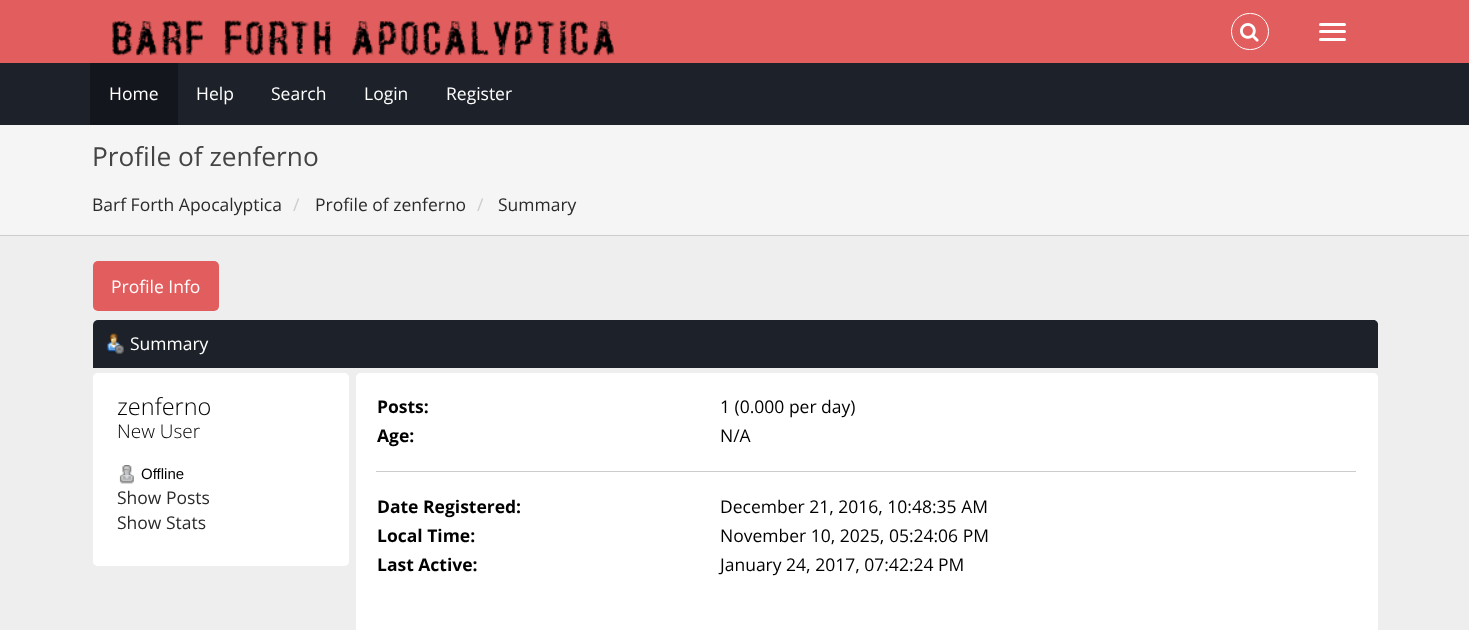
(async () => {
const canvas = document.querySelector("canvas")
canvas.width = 1469
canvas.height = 630
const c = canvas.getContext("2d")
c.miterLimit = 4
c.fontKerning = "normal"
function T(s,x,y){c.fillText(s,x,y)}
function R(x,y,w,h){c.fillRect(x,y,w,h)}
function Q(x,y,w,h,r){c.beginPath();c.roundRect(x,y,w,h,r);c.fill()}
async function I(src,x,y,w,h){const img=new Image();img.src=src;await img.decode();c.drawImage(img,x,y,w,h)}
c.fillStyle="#eee"
R(0,0,1469,630)
c.fillStyle="#e25d5d"
R(0,0,1469,63)
await I("1.png",112,20,503,36)
c.beginPath()
c.roundRect(1231.5,13.5,37,36,18)
c.strokeStyle="#fff"
c.stroke()
await I("2.png",1240,23,19,19)
c.fillStyle="#fff"
Q(1319,23,27,3,1.5)
Q(1319,30,27,3,1.5)
Q(1319,38,27,3,1.5)
c.fillStyle="#1d212a"
R(0,63,1469,62)
c.fillStyle="#13161c"
R(90,63,88,62)
c.font="17.5px Open Sans"
c.fillStyle="#fff"
T("Home",109,100)
T("Help",196,100)
T("Search",271,100)
T("Login",364,100)
T("Register",446,100)
c.fillStyle="#f5f5f5"
R(0,125,1469,110)
c.fillStyle="#ccc"
R(0,235,1469,1)
c.font="26.25px Open Sans"
c.fillStyle="#444"
T("Profile of zenferno",92,166)
c.font="17.5px Open Sans"
c.fillStyle="#2a2a2a"
T("Barf Forth Apocalyptica",92,211)
c.fillStyle="#ccc"
T("/",293,211)
c.fillStyle="#2a2a2a"
T("Profile of zenferno",315,211)
c.fillStyle="#ccc"
T("/",477,211)
c.fillStyle="#2a2a2a"
T("Summary",498,211)
c.fillStyle="#e25d5d"
Q(93,261,126,50,5)
c.fillStyle="#fff"
T("Profile Info",111,293)
c.fillStyle="#1d212a"
c.beginPath()
c.roundRect(93,320,1285,48,[5,5,0,0])
c.fill()
c.beginPath()
c.roundRect(104,320,1274,48,[0,5,0,0])
c.fill()
await I("3.png",107,333,17,21)
c.fillStyle="#fff"
T("Summary",130,350)
Q(93,373,256,193,5)
c.beginPath()
c.roundRect(93,373,256,13,[5,5,0,0])
c.fill()
c.font="300 23.5px Open Sans"
c.fillStyle="#000"
T("zenferno",117,415)
c.font="300 19px Open Sans"
T("New User",117,438)
await I("4.png",119,465,15,19)
c.font="15px Liberation Sans"
T("Offline",141,479)
c.font="17.5px Open Sans"
c.fillStyle="#2a2a2a"
T("Show Posts",117,504)
T("Show Stats",117,529)
c.fillStyle="#fff"
c.beginPath()
c.roundRect(93,553,256,13,[0,0,5,5])
c.fill()
Q(356,373,1022,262,5)
c.beginPath()
c.roundRect(356,373,1022,13,[5,5,0,0])
c.fill()
c.fillStyle="#ccc"
R(376,471,980,1)
c.font="bold 17.5px Open Sans"
c.fillStyle="#000"
T("Posts:",377,413)
c.font="17.5px Open Sans"
T("1 (0.000 per day)",720,413)
c.font="bold 17.5px Open Sans"
T("Age:",377,442)
c.font="17.5px Open Sans"
T("N/A",720,442)
c.font="bold 17.5px Open Sans"
T("Date Registered:",377,513)
c.font="17.5px Open Sans"
T("December 21, 2016, 10:48:35 AM",720,513)
c.font="bold 17.5px Open Sans"
T("Local Time:",377,542)
c.font="17.5px Open Sans"
T("November 10, 2025, 05:24:06 PM",720,542)
c.font="bold 17.5px Open Sans"
T("Last Active:",377,571)
c.font="17.5px Open Sans"
T("January 24, 2017, 07:42:24 PM",720,571)
})()
